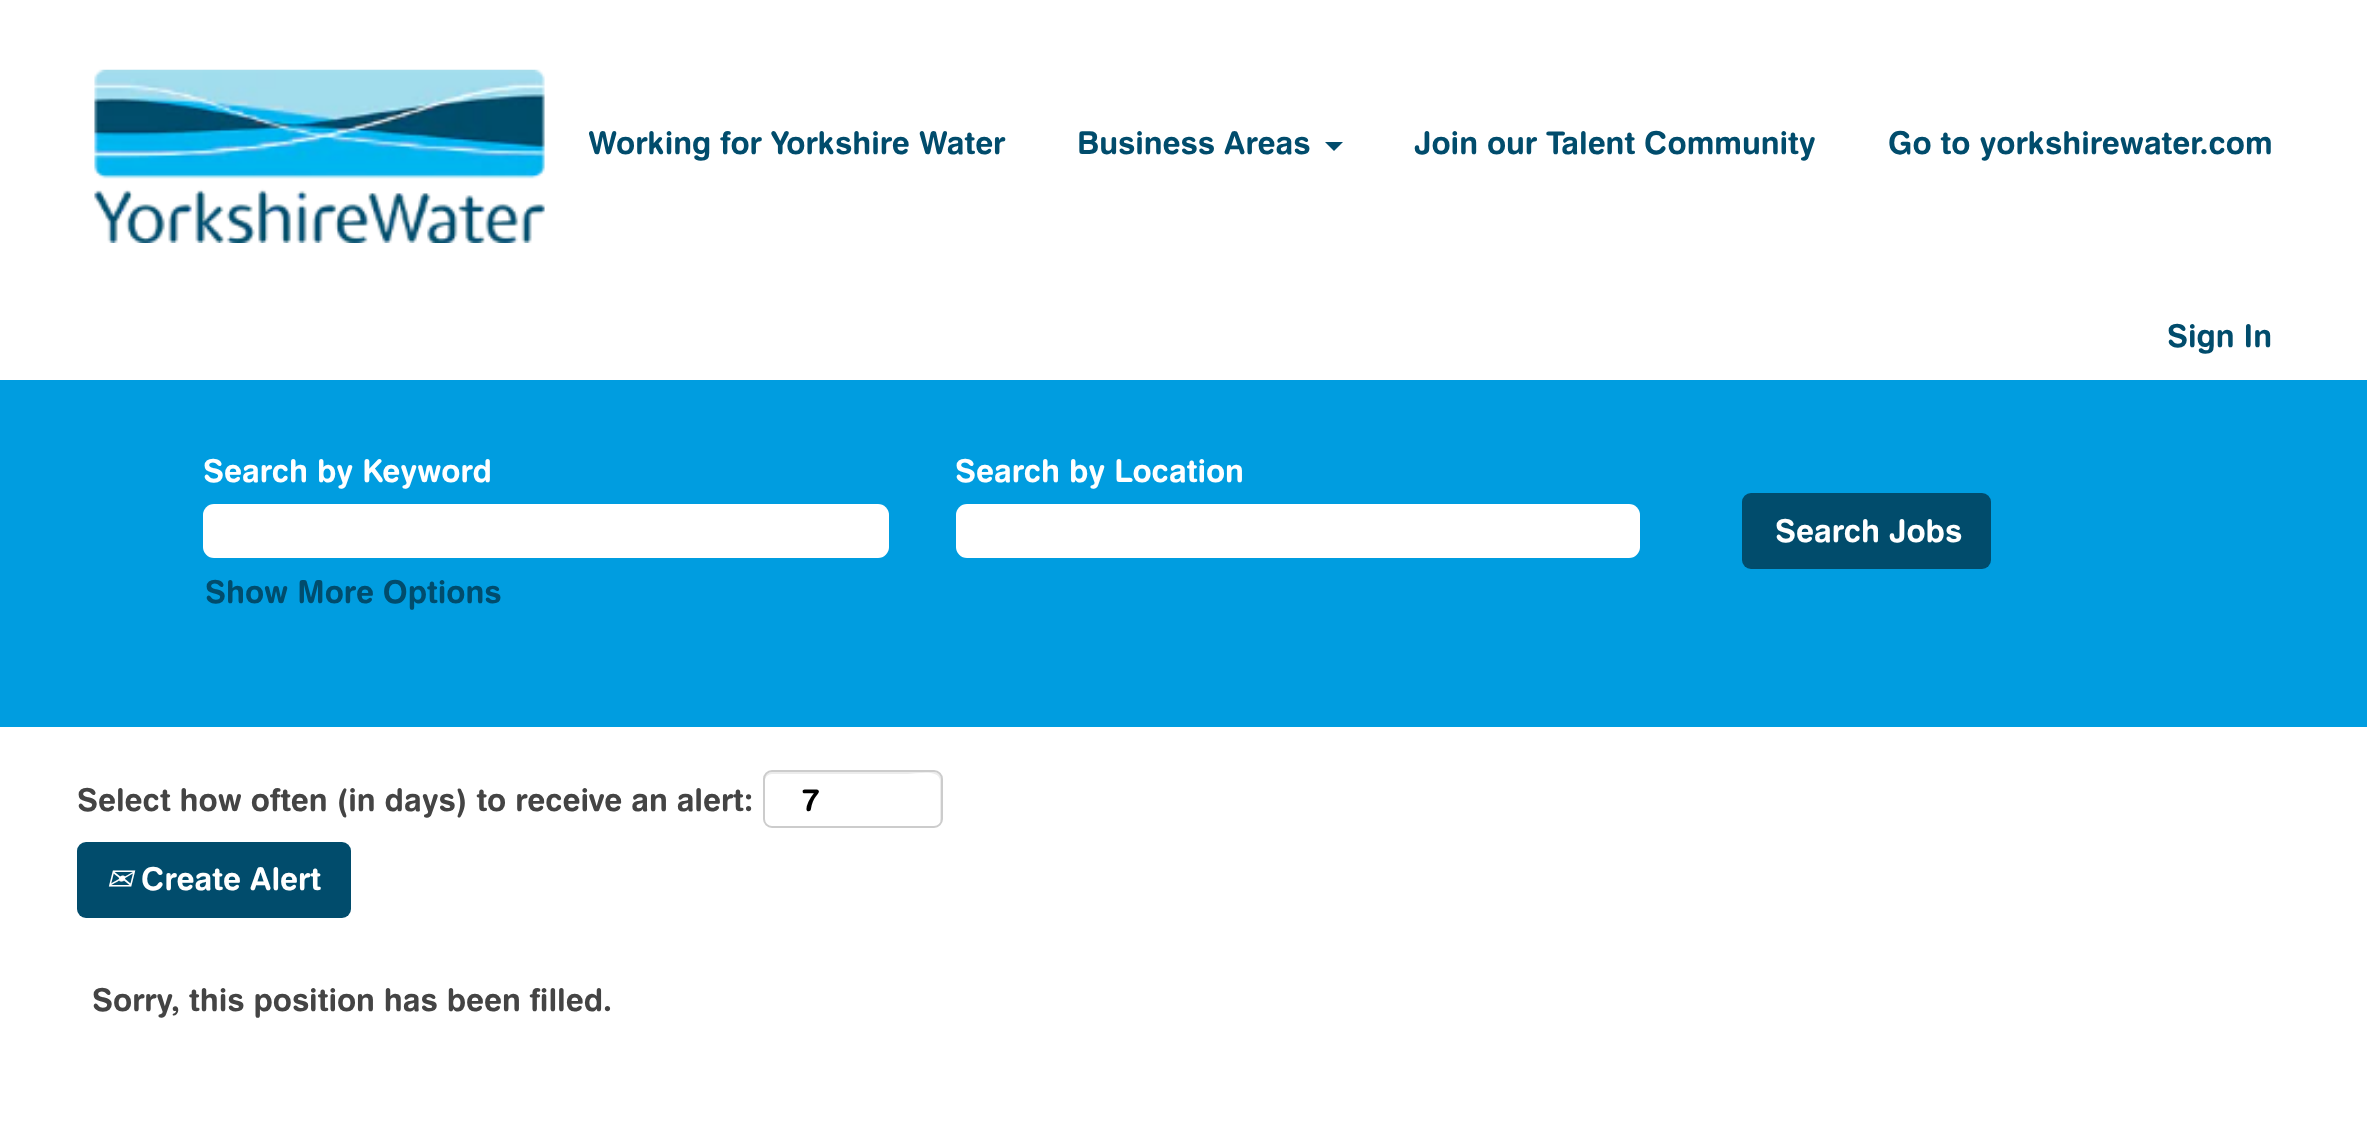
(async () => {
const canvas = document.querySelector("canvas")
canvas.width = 2367
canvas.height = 1126
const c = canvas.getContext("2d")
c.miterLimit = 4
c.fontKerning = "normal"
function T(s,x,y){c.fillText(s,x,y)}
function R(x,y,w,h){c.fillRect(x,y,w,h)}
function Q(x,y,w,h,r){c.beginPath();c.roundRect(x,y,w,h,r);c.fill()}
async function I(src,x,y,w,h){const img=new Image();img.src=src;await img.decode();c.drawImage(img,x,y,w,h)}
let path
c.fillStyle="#fff"
R(0,0,2367,1126)
await I("1.png",94,69,451,174)
c.font="bold 31.5px 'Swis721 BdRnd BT'"
c.fillStyle="#014c6c"
T("Working for Yorkshire Water",588,154)
T("Business Areas",1077,154)
path = new Path2D("M1325 142h18l-9 9z")
c.fill(path)
T("Join our Talent Community",1414,154)
T("Go to yorkshirewater.com",1888,154)
T("Sign In",2167,347)
c.fillStyle="#009de0"
R(0,380,2367,347)
c.fillStyle="#fff"
T("Search by Keyword",203,482)
Q(203,504,686,54,11)
T("Search by Location",955,482)
Q(956,504,684,54,11)
c.fillStyle="#014c6c"
T("Show More Options",205,603)
Q(1742,493,249,76,9)
c.fillStyle="#fff"
T("Search Jobs",1775,542)
c.fillStyle="#444"
T("Select how often (in days) to receive an alert:",77,811)
c.fillStyle="#ececec"
path = new Path2D("M772 774h135c10 0 31-5 33 6v43c1-1 1-3 1-4v-40c0-4-3-7-7-7h-162c-4 0-7 3-7 7v2c0-4 3-7 7-7z")
c.fill(path)
c.beginPath()
c.roundRect(764,771,178,56,8)
c.strokeStyle="#ccc"
c.lineWidth=2
c.stroke()
c.fillStyle="#000"
T("7",802,811)
c.fillStyle="#014c6c"
Q(77,842,274,76,9)
c.font="italic 31.5px DejaVu Sans"
c.fillStyle="#fff"
T("✉",106,890)
c.font="bold 31.5px 'Swis721 BdRnd BT'"
T("Create Alert",141,890)
c.fillStyle="#444"
T("Sorry, this position has been filled.",92,1011)
})()
